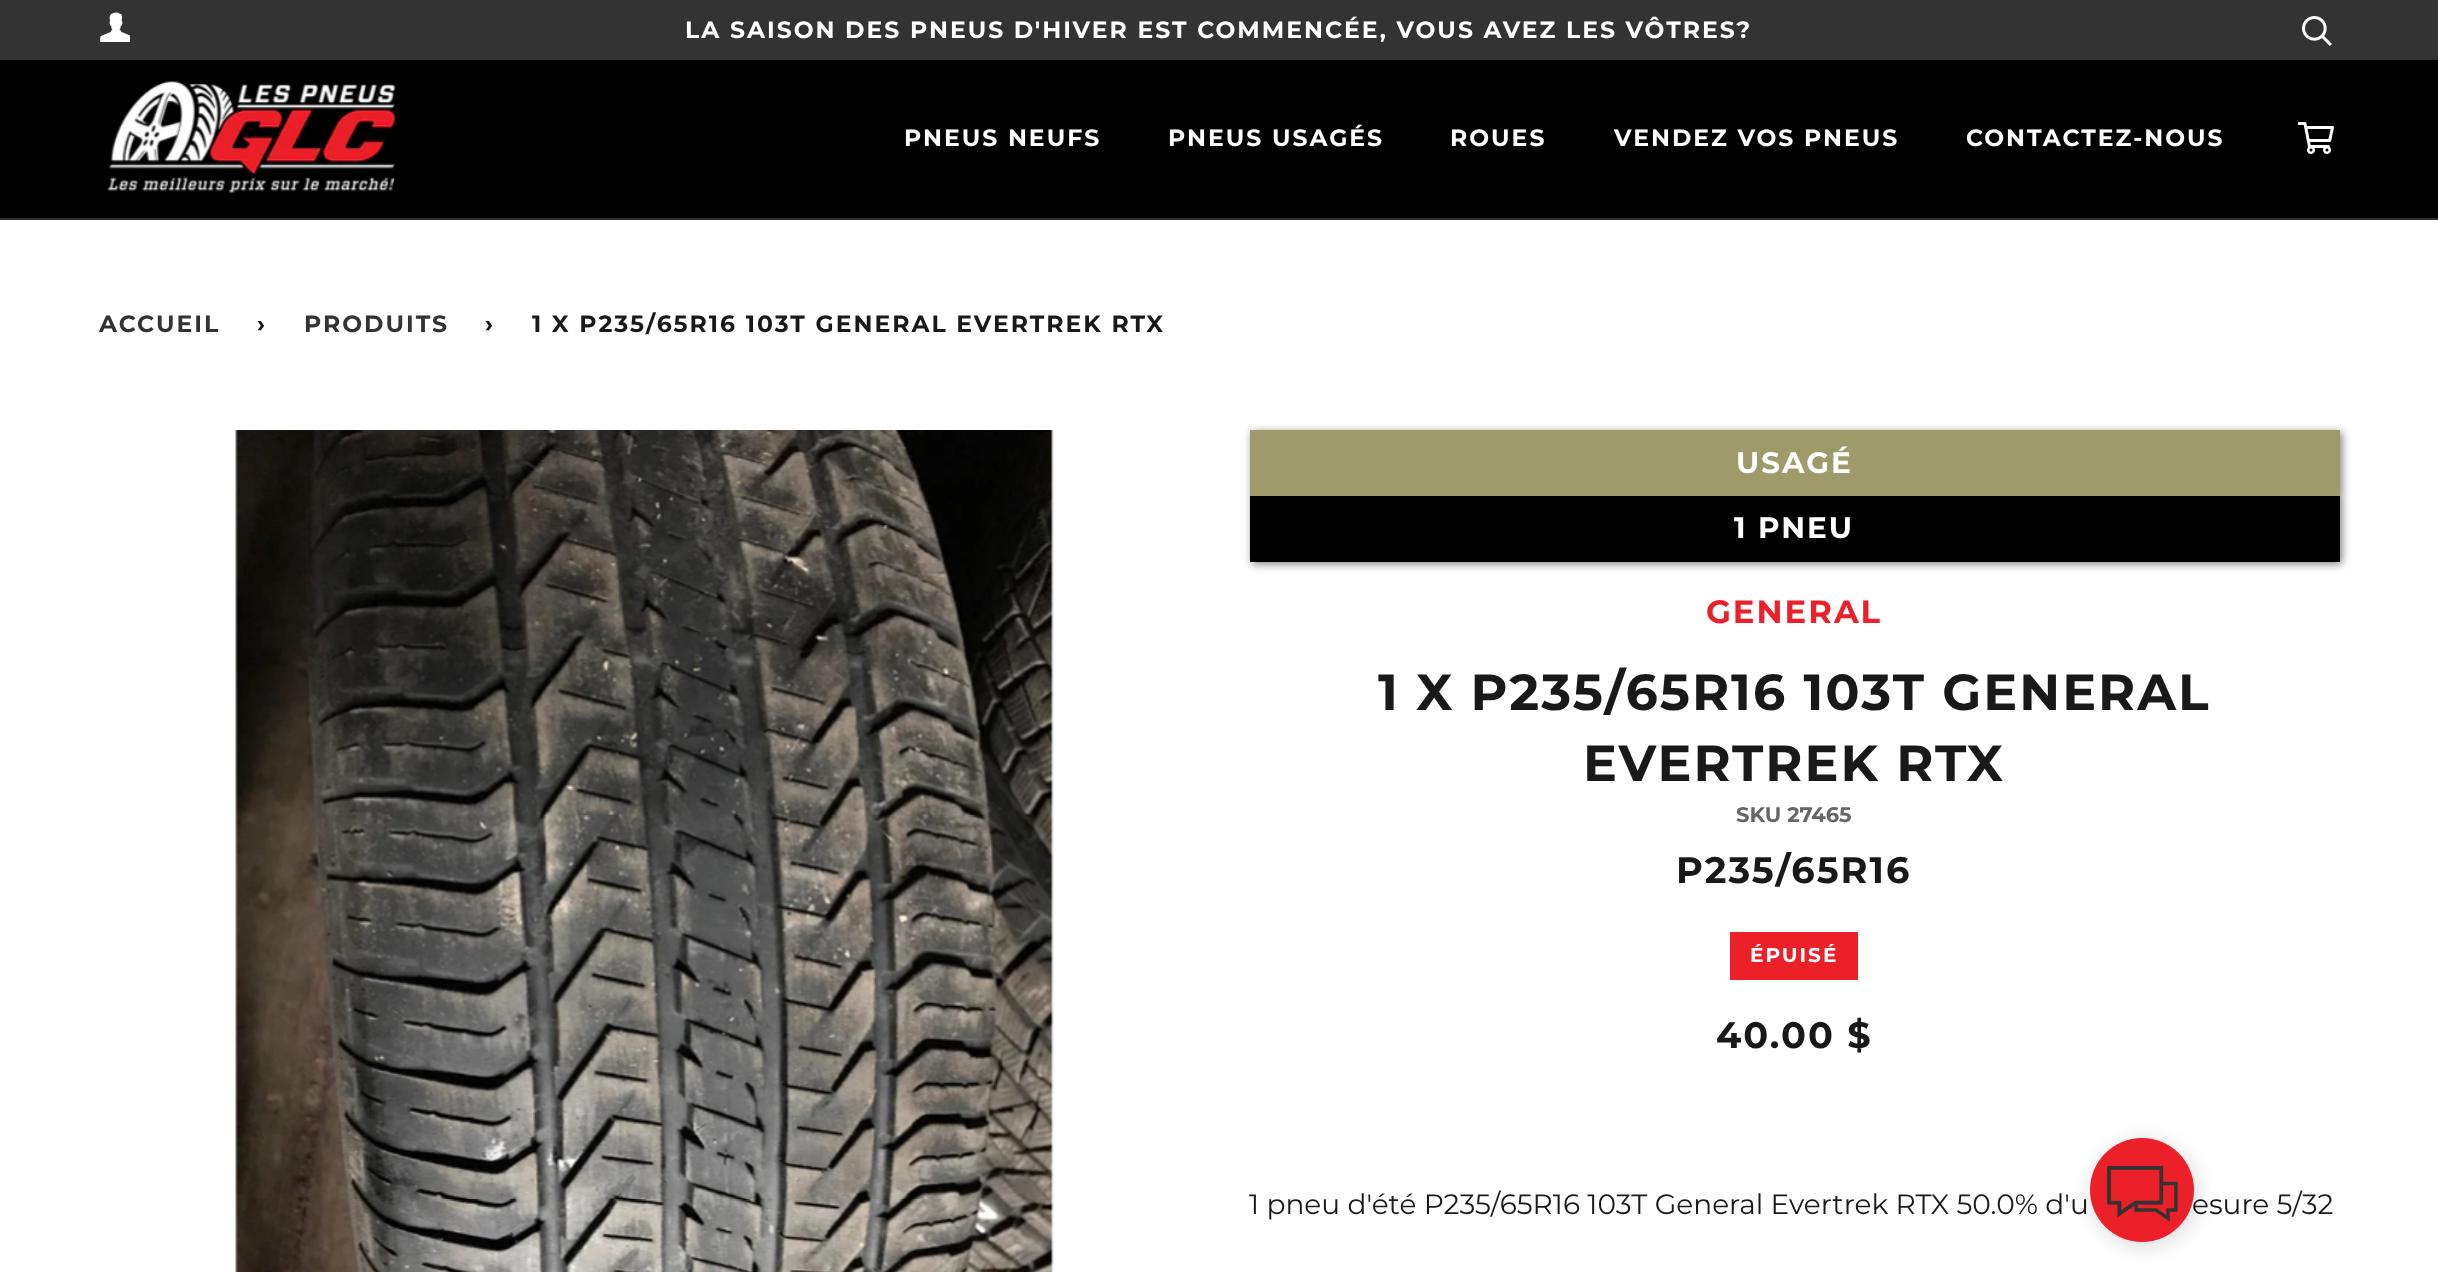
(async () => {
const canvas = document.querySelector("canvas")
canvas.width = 2438
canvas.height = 1272
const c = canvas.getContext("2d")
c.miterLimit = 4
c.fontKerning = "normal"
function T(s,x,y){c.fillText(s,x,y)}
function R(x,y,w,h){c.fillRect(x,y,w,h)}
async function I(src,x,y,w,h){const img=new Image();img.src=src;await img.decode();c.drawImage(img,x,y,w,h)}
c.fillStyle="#fff"
R(0,0,2438,1272)
c.fillStyle="#333"
R(0,0,2438,60)
await I("1.png",100,12,30,30)
c.letterSpacing="2px"
c.font="bold 23.5px Montserrat"
c.fillStyle="#fff"
T("LA SAISON DES PNEUS D'HIVER EST COMMENCÉE, VOUS AVEZ LES VÔTRES?",685,38)
await I("2.png",2302,16,30,30)
c.fillStyle="#000"
R(0,60,2438,158)
c.fillStyle="#333"
R(0,218,2438,2)
await I("3.png",107,81,290,113)
c.fillStyle="#fff"
T("PNEUS NEUFS",904,146)
T("PNEUS USAGÉS",1168,146)
T("ROUES",1450,146)
T("VENDEZ VOS PNEUS",1614,146)
T("CONTACTEZ-NOUS",1966,146)
await I("4.png",2298,122,36,32)
c.fillStyle="#333"
T("ACCUEIL",99,332)
c.fillStyle="#191919"
T("›",257,332)
c.fillStyle="#333"
T("PRODUITS",304,332)
c.fillStyle="#191919"
T("›",485,332)
T("1 X P235/65R16 103T GENERAL EVERTREK RTX",532,332)
await I("5.png",235,430,819,842)
c.fillStyle="#00000080"
c.filter="blur(4px)"
c.beginPath()
c.rect(1252,498,1090,66)
c.fill()
c.filter="none"
c.fillStyle="#000"
R(1250,496,1090,66)
c.fillStyle="#00000080"
c.filter="blur(4px)"
c.beginPath()
c.rect(1252,432,1090,66)
c.fill()
c.filter="none"
c.fillStyle="#9e9a69"
R(1250,430,1090,66)
c.font="bold 29.5px Montserrat"
c.fillStyle="#fff"
T("USAGÉ",1736,473)
T("1 PNEU",1734,538)
c.font="bold 32.25px Montserrat"
c.fillStyle="#ec2029"
T("GENERAL",1706,623)
c.font="bold 50.6px Montserrat"
c.fillStyle="#191919"
T("1 X P235/65R16 103T GENERAL",1378,710)
T("EVERTREK RTX",1583,781)
c.letterSpacing="0px"
c.font="bold 21px Montserrat"
c.fillStyle="#666"
T("SKU 27465",1736,822)
c.letterSpacing="2px"
c.font="bold 36.75px Montserrat"
c.fillStyle="#191919"
T("P235/65R16",1676,883)
c.fillStyle="#ec2029"
R(1730,932,128,48)
c.font="bold 20px Montserrat"
c.fillStyle="#fff"
T("ÉPUISÉ",1750,962)
c.font="bold 36.75px Montserrat"
c.fillStyle="#191919"
T("40.00 $",1716,1048)
c.letterSpacing="0px"
c.font="28px Montserrat"
T("1 pneu d'été P235/65R16 103T General Evertrek RTX 50.0% d'u",1249,1214)
T("esure 5/32",2192,1214)
c.fillStyle="#00000012"
c.filter="blur(9px)"
c.beginPath()
c.roundRect(2090,1138,112,112,56)
c.fill()
c.filter="none"
c.fillStyle="#0000000d"
c.filter="blur(10px)"
c.beginPath()
c.roundRect(2090,1142,104,104,52)
c.fill()
c.filter="none"
await I("6.png",2090,1138,104,104)
})()
